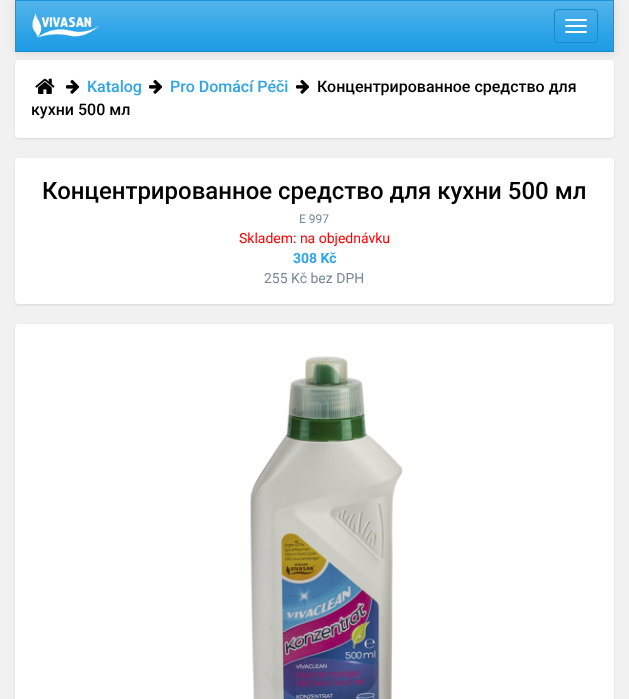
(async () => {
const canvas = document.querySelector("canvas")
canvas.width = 629
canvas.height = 699
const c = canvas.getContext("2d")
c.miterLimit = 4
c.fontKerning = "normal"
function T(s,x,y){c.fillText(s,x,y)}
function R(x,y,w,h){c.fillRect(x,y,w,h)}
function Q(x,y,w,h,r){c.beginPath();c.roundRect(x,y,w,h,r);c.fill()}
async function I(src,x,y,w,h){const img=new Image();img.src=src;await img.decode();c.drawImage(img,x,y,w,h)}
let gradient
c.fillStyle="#f1f1f1"
R(0,0,629,699)
c.fillStyle="#0000001a"
c.filter="blur(1px)"
c.beginPath()
c.roundRect(15,61,599,78,4)
c.fill()
c.filter="none"
c.fillStyle="#fff"
Q(15,60,599,78,4)
c.fillStyle="#0000001a"
c.filter="blur(5px)"
c.beginPath()
c.rect(15,1,599,52)
c.fill()
c.filter="none"
gradient = c.createLinearGradient(315,1,315,51)
gradient.addColorStop(0,"#54b4eb")
gradient.addColorStop(.6,"#2fa4e7")
gradient.addColorStop(1,"#1d9ce5")
c.fillStyle = gradient
R(16,1,597,50)
c.fillStyle="#1995dc"
R(15,0,599,1)
R(613,0,1,52)
c.fillStyle="#178acc"
R(15,51,599,1)
c.fillStyle="#1995dc"
R(15,0,1,52)
await I("1.png",32,13,68,25)
c.beginPath()
c.roundRect(554.5,9.5,43,33,3.5)
c.strokeStyle="#178acc"
c.stroke()
c.fillStyle="#fff"
Q(565,19,22,2,1)
Q(565,25,22,2,1)
Q(565,31,22,2,1)
await I("2.png",35,78,20,16)
await I("3.png",66,79,14,15)
c.font="500 16px Roboto"
c.fillStyle="#2fa4e7"
T("Katalog",87,92)
await I("3.png",149,79,14,15)
T("Pro Domácí Péči",170,92)
await I("3.png",296,79,14,15)
c.fillStyle="#000"
T("Концентрированное средство для",317,92)
T("кухни 500 мл",31,115)
c.fillStyle="#0000001a"
c.filter="blur(1px)"
c.beginPath()
c.roundRect(15,159,599,146,4)
c.fill()
c.filter="none"
c.fillStyle="#fff"
Q(15,158,599,146,4)
c.font="500 24px Roboto"
c.fillStyle="#000"
T("Концентрированное средство для кухни 500 мл",42,199)
c.font="12px Roboto"
c.fillStyle="#789"
T("E 997",299,223)
c.font="14px Roboto"
c.fillStyle="#f00"
T("Skladem: na objednávku",239,243)
c.font="bold 14px Roboto"
c.fillStyle="#2fa4e7"
T("308 Kč",293,263)
c.font="14px Roboto"
c.fillStyle="#789"
T("255 Kč bez DPH",264,283)
c.fillStyle="#0000001a"
c.filter="blur(1px)"
c.beginPath()
c.roundRect(15,325,599,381,4)
c.fill()
c.filter="none"
c.fillStyle="#fff"
Q(15,324,599,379,4)
await I("4.png",250,356,153,343)
})()
